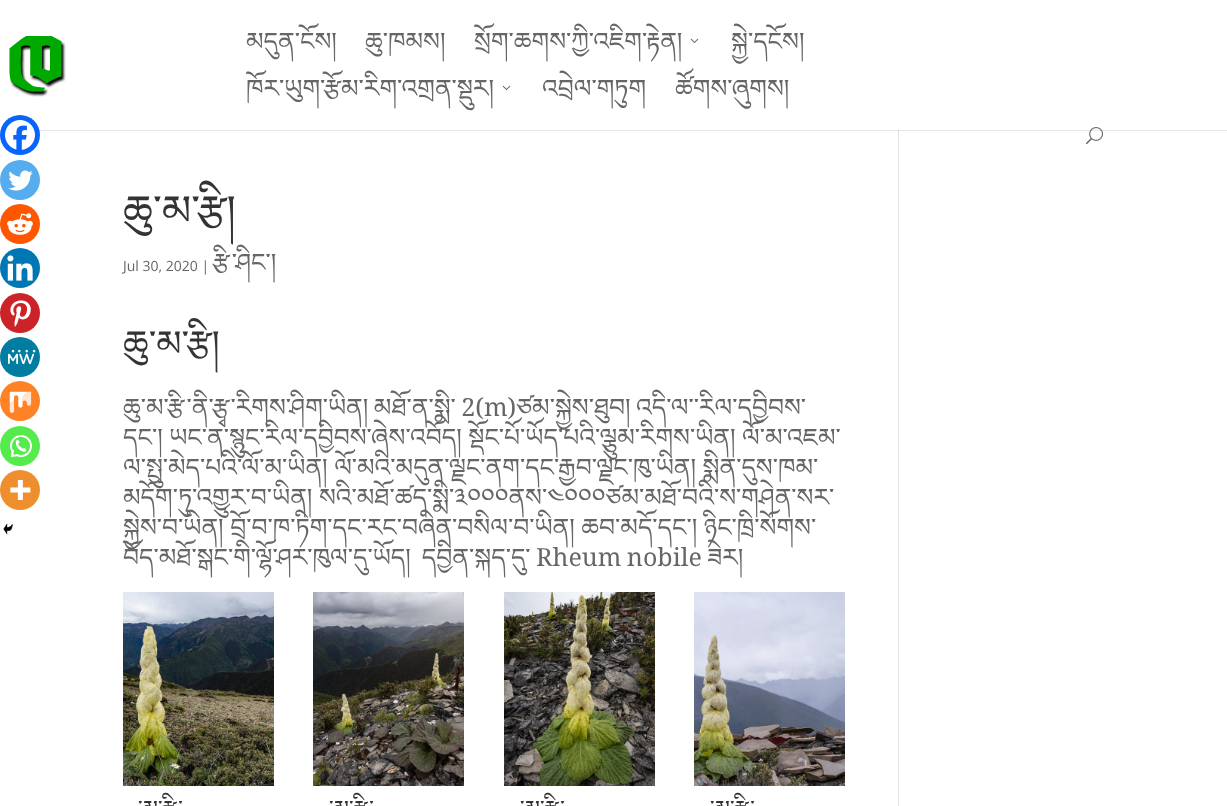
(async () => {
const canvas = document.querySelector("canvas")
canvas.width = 1227
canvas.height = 806
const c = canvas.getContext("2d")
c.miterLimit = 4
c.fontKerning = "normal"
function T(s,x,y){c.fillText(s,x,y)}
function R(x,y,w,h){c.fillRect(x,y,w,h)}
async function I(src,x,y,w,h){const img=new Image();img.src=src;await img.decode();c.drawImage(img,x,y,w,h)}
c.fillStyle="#fff"
R(0,0,1227,806)
c.fillStyle="#e6e6e6"
R(0,130,1227,1)
await I("1.png",9,36,57,61)
c.font="25px Noto Serif Tibetan"
c.fillStyle="#666"
T("མདུན་ངོས།",246,50)
T("ཆུ་ཁམས།",365,50)
T("སྲོག་ཆགས་ཀྱི་འཇིག་རྟེན།",474,50)
await I("2.png",690,38,9,5)
T("སྐྱེ་དངོས།",731,50)
T("ཁོར་ཡུག་རྩོམ་རིག་འགྲན་སྡུར།",246,97)
await I("2.png",502,85,9,5)
T("འབྲེལ་གཏུག",542,97)
T("ཚོགས་ཞུགས།",675,97)
await I("3.png",1086,127,17,18)
c.font="42px Noto Serif Tibetan"
c.fillStyle="#333"
T("ཆུ་མ་རྩི།",123,225)
c.font="14px Open Sans"
c.fillStyle="#666"
T("Jul 30, 2020 |",123,271)
c.font="25px Noto Serif Tibetan"
T("རྩི་ཤིང་།",212,271)
c.fillStyle="#0765fe"
c.beginPath()
c.arc(20,135,20,0,7)
c.fill()
await I("4.png",5,120,30,30)
c.fillStyle="#55acee"
c.beginPath()
c.arc(20,180,20,0,7)
c.fill()
await I("5.png",8,170,25,21)
c.fillStyle="#ff5700"
c.beginPath()
c.arc(20,224,20,0,7)
c.fill()
await I("6.png",7,213,26,22)
c.fillStyle="#0077b5"
c.beginPath()
c.arc(20,268,20,0,7)
c.fill()
await I("7.png",7,255,26,26)
c.fillStyle="#cc2329"
c.beginPath()
c.arc(20,313,20,0,7)
c.fill()
await I("8.png",10,300,21,27)
c.fillStyle="#007da1"
c.beginPath()
c.arc(20,357,20,0,7)
c.fill()
await I("9.png",8,349,28,16)
c.fillStyle="#ff8226"
c.beginPath()
c.arc(20,401,20,0,7)
c.fill()
await I("10.png",9,391,23,22)
c.fillStyle="#55eb4c"
c.beginPath()
c.arc(20,446,20,0,7)
c.fill()
await I("11.png",10,435,22,23)
c.fillStyle="#ee8e2d"
c.beginPath()
c.arc(20,490,20,0,7)
c.fill()
await I("12.png",10,480,21,20)
await I("13.png",3,523,10,12)
c.font="36px Noto Serif Tibetan"
c.fillStyle="#333"
T("ཆུ་མ་རྩི།",123,356)
c.wordSpacing="-1px"
c.font="25px Noto Serif Tibetan"
c.fillStyle="#666"
T("ཆུ་མ་རྩི་ནི་རྩྭ་རིགས་ཤིག་ཡིན། མཐོ་ན་སྨི་ 2(m)ཙམ་སྐྱེས་ཐུབ། འདི་ལ་་རིལ་དབྱིབས་",123,416)
c.wordSpacing="0px"
T("དང་། ཡང་ན་སྙུང་རིལ་དབྱིབས་ཞེས་འབོད། སྡོང་པོ་ཡོད་པའི་ལྕུམ་རིགས་ཡིན། ལོ་མ་འཇམ་",123,446)
T("ལ་སྤུ་མེད་པའི་ལོ་མ་ཡིན། ལོ་མའི་མདུན་ལྗང་ནག་དང་རྒྱབ་ལྗང་ཁུ་ཡིན། སྨིན་དུས་ཁམ་",123,476)
T("མདོག་ཏུ་འགྱུར་བ་ཡིན། སའི་མཐོ་ཚད་སྨི་༣༠༠༠ནས་༤༠༠༠ཙམ་མཐོ་བའི་ས་གཤེན་སར་",123,506)
T("སྐྱེས་བ་ཡིན། བྲོ་བ་ཁ་ཏིག་དང་རང་བཞིན་བསིལ་བ་ཡིན། ཆབ་མདོ་དང་། ཉིང་ཁྲི་སོགས་",123,536)
c.wordSpacing="-1px"
T("བོད་མཐོ་སྒང་གི་ལྷོ་ཤར་ཁུལ་དུ་ཡོད།  དབྱིན་སྐད་དུ་ Rheum nobile ཟེར།",123,566)
await I("14.png",123,592,151,194)
c.wordSpacing="0px"
c.font="22px Noto Serif Tibetan"
c.fillStyle="#333"
T("་མ་རྩི་",138,816)
await I("15.png",313,592,151,194)
T("་མ་རྩི་",329,816)
await I("16.png",504,592,151,194)
T("་མ་རྩི་",520,816)
await I("17.png",694,592,151,194)
T("་མ་རྩི་",710,816)
c.fillStyle="#e2e2e2"
R(898,130,1,676)
c.fillStyle="#cbcbcb"
R(898,130,1,1)
})()
